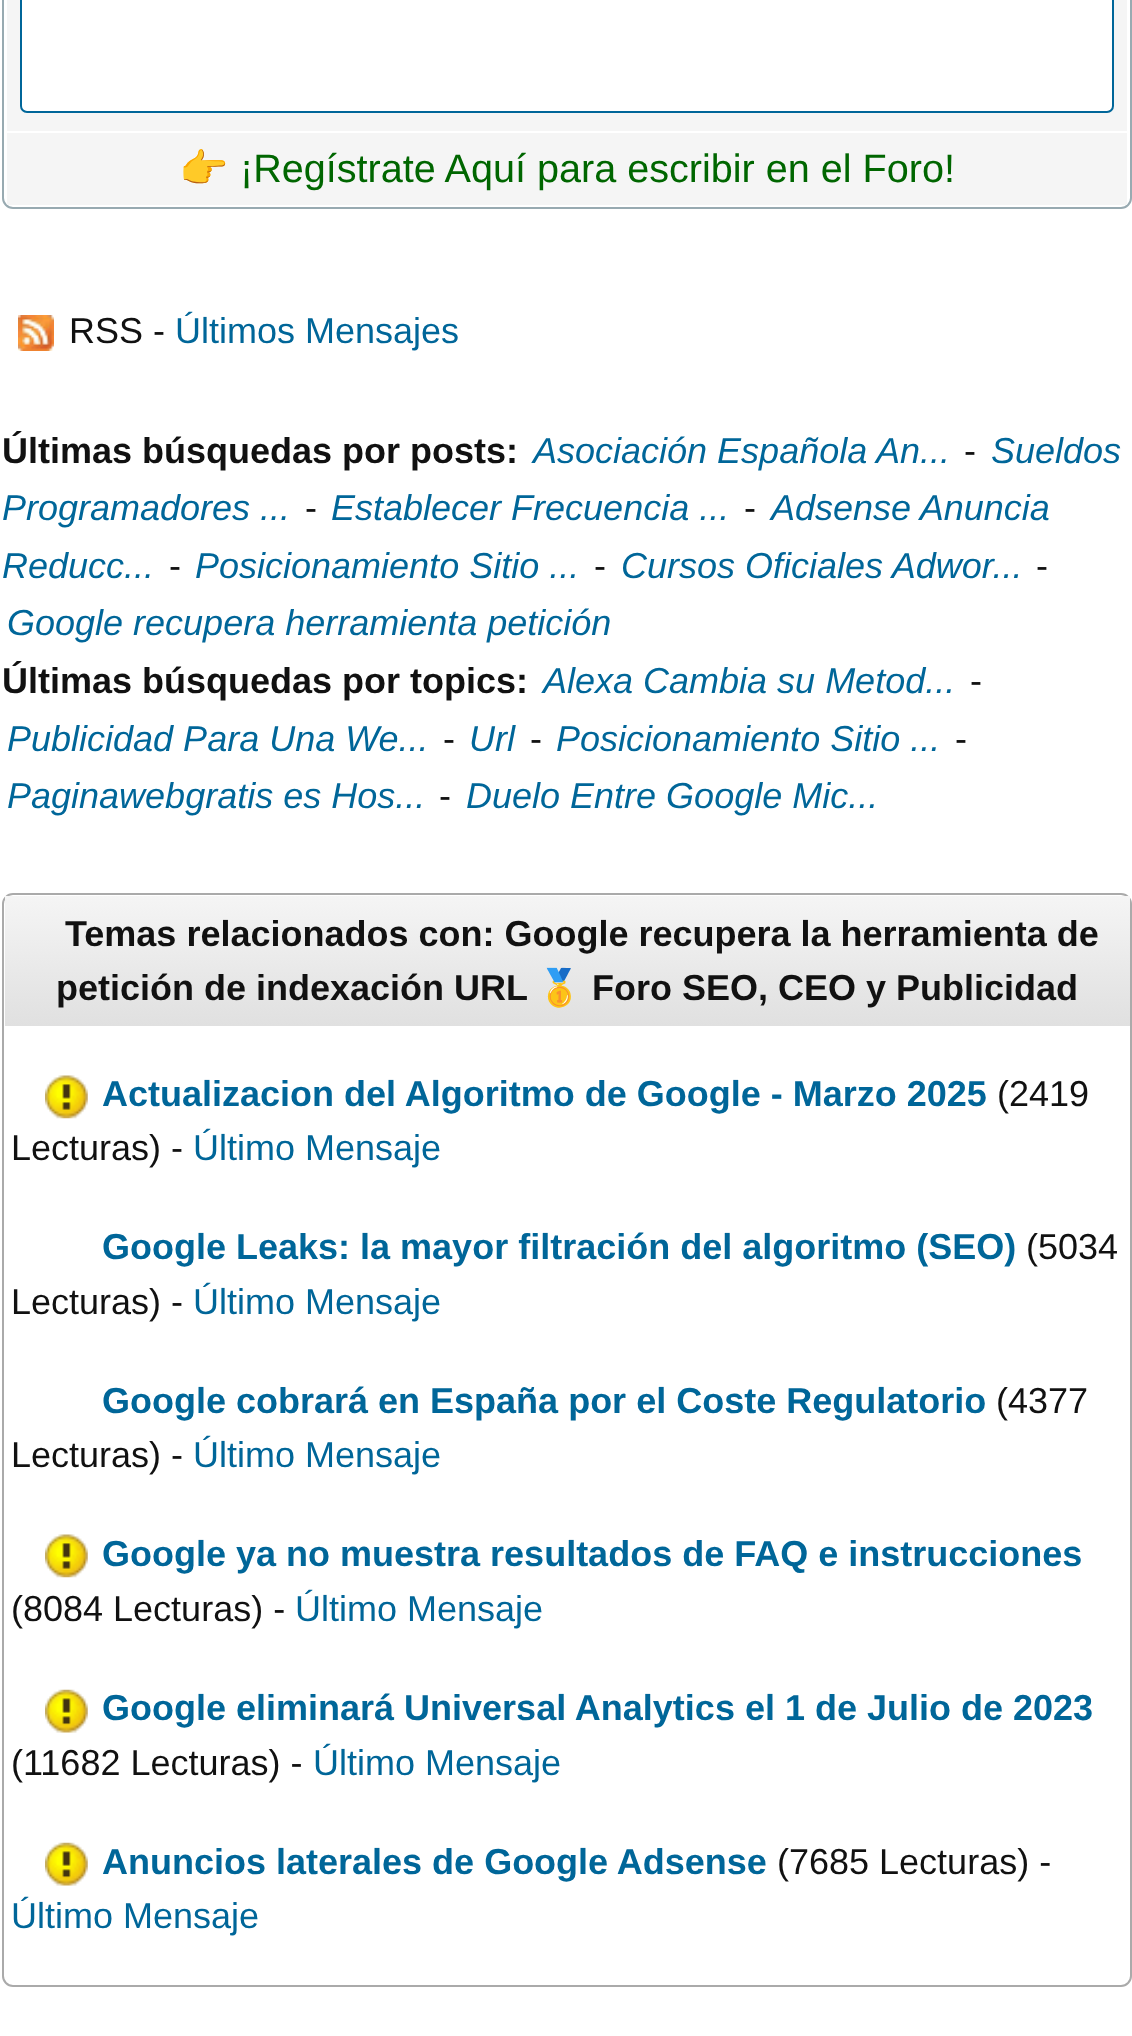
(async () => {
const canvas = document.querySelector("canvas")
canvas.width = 1132
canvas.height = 2036
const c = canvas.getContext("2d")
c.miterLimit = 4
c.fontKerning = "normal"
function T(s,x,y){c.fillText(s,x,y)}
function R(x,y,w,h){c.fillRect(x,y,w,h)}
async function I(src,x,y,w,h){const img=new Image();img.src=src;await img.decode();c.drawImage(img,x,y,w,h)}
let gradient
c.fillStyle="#fff"
R(0,0,1132,2036)
c.beginPath()
c.roundRect(3,-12,1128,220,10)
c.strokeStyle="#98aab1"
c.lineWidth=2
c.stroke()
c.fillStyle="#f5f5f5"
R(7,0,1120,131)
c.fillStyle="#fff"
c.beginPath()
c.roundRect(21,-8,1092,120,6)
c.fill()
c.strokeStyle="#069"
c.stroke()
c.fillStyle="#f5f5f5"
R(7,133,1120,72)
c.font="39.6px Noto Color Emoji"
c.fillStyle="#060"
T("👉",179,182)
c.font="39.6px Liberation Sans"
T("¡Regístrate Aquí para escribir en el Foro!",240,182)
await I("1.png",18,315,36,36)
c.font="36px Liberation Sans"
c.fillStyle="#111"
T("RSS -",69,343)
c.fillStyle="#069"
T("Últimos Mensajes",175,343)
c.font="bold 36px Liberation Sans"
c.fillStyle="#111"
T("Últimas búsquedas por posts:",2,463)
c.font="italic 36px Liberation Sans"
c.fillStyle="#069"
T("Asociación Española An...",533,463)
c.font="36px Liberation Sans"
c.fillStyle="#111"
T("-",964,463)
c.font="italic 36px Liberation Sans"
c.fillStyle="#069"
T("Sueldos",991,463)
T("Programadores ...",2,520)
c.font="36px Liberation Sans"
c.fillStyle="#111"
T("-",305,520)
c.font="italic 36px Liberation Sans"
c.fillStyle="#069"
T("Establecer Frecuencia ...",331,520)
c.font="36px Liberation Sans"
c.fillStyle="#111"
T("-",744,520)
c.font="italic 36px Liberation Sans"
c.fillStyle="#069"
T("Adsense Anuncia",771,520)
T("Reducc...",2,578)
c.font="36px Liberation Sans"
c.fillStyle="#111"
T("-",169,578)
c.font="italic 36px Liberation Sans"
c.fillStyle="#069"
T("Posicionamiento Sitio ...",195,578)
c.font="36px Liberation Sans"
c.fillStyle="#111"
T("-",594,578)
c.font="italic 36px Liberation Sans"
c.fillStyle="#069"
T("Cursos Oficiales Adwor...",621,578)
c.font="36px Liberation Sans"
c.fillStyle="#111"
T("-",1036,578)
c.font="italic 36px Liberation Sans"
c.fillStyle="#069"
T("Google recupera herramienta petición",7,635)
c.font="bold 36px Liberation Sans"
c.fillStyle="#111"
T("Últimas búsquedas por topics:",2,693)
c.font="italic 36px Liberation Sans"
c.fillStyle="#069"
T("Alexa Cambia su Metod...",543,693)
c.font="36px Liberation Sans"
c.fillStyle="#111"
T("-",970,693)
c.font="italic 36px Liberation Sans"
c.fillStyle="#069"
T("Publicidad Para Una We...",7,751)
c.font="36px Liberation Sans"
c.fillStyle="#111"
T("-",443,751)
c.font="italic 36px Liberation Sans"
c.fillStyle="#069"
T("Url",469,751)
c.font="36px Liberation Sans"
c.fillStyle="#111"
T("-",530,751)
c.font="italic 36px Liberation Sans"
c.fillStyle="#069"
T("Posicionamiento Sitio ...",556,751)
c.font="36px Liberation Sans"
c.fillStyle="#111"
T("-",955,751)
c.font="italic 36px Liberation Sans"
c.fillStyle="#069"
T("Paginawebgratis es Hos...",7,808)
c.font="36px Liberation Sans"
c.fillStyle="#111"
T("-",439,808)
c.font="italic 36px Liberation Sans"
c.fillStyle="#069"
T("Duelo Entre Google Mic...",466,808)
c.beginPath()
c.roundRect(3,894,1128,1092,10)
c.strokeStyle="#aaa"
c.stroke()
gradient = c.createLinearGradient(567,895,567,1026)
gradient.addColorStop(0,"#f5f5f5")
gradient.addColorStop(1,"#e0e0e0")
c.fillStyle = gradient
R(5,896,1125,130)
c.font="bold 36px Liberation Sans"
c.fillStyle="#111"
T("Temas relacionados con: Google recupera la herramienta de",65,946)
T("petición de indexación URL",56,1000)
c.font="bold 36px Noto Color Emoji"
T("🥇",537,1000)
c.font="bold 36px Liberation Sans"
T("Foro SEO, CEO y Publicidad",592,1000)
await I("2.png",45,1075,43,44)
c.fillStyle="#069"
T("Actualizacion del Algoritmo de Google - Marzo 2025",102,1106)
c.font="36px Liberation Sans"
c.fillStyle="#111"
T("(2419",997,1106)
T("Lecturas) -",11,1160)
c.fillStyle="#069"
T("Último Mensaje",193,1160)
c.font="bold 36px Liberation Sans"
T("Google Leaks: la mayor filtración del algoritmo (SEO)",102,1259)
c.font="36px Liberation Sans"
c.fillStyle="#111"
T("(5034",1026,1259)
T("Lecturas) -",11,1314)
c.fillStyle="#069"
T("Último Mensaje",193,1314)
c.font="bold 36px Liberation Sans"
T("Google cobrará en España por el Coste Regulatorio",102,1413)
c.font="36px Liberation Sans"
c.fillStyle="#111"
T("(4377",996,1413)
T("Lecturas) -",11,1467)
c.fillStyle="#069"
T("Último Mensaje",193,1467)
await I("2.png",45,1534,43,44)
c.font="bold 36px Liberation Sans"
T("Google ya no muestra resultados de FAQ e instrucciones",102,1566)
c.font="36px Liberation Sans"
c.fillStyle="#111"
T("(8084 Lecturas) -",11,1621)
c.fillStyle="#069"
T("Último Mensaje",295,1621)
await I("3.png",45,1689,43,44)
c.font="bold 36px Liberation Sans"
T("Google eliminará Universal Analytics el 1 de Julio de 2023",102,1720)
c.font="36px Liberation Sans"
c.fillStyle="#111"
T("(11682 Lecturas) -",11,1775)
c.fillStyle="#069"
T("Último Mensaje",313,1775)
await I("4.png",45,1842,43,44)
c.font="bold 36px Liberation Sans"
T("Anuncios laterales de Google Adsense",102,1874)
c.font="36px Liberation Sans"
c.fillStyle="#111"
T("(7685 Lecturas) -",777,1874)
c.fillStyle="#069"
T("Último Mensaje",11,1928)
})()
